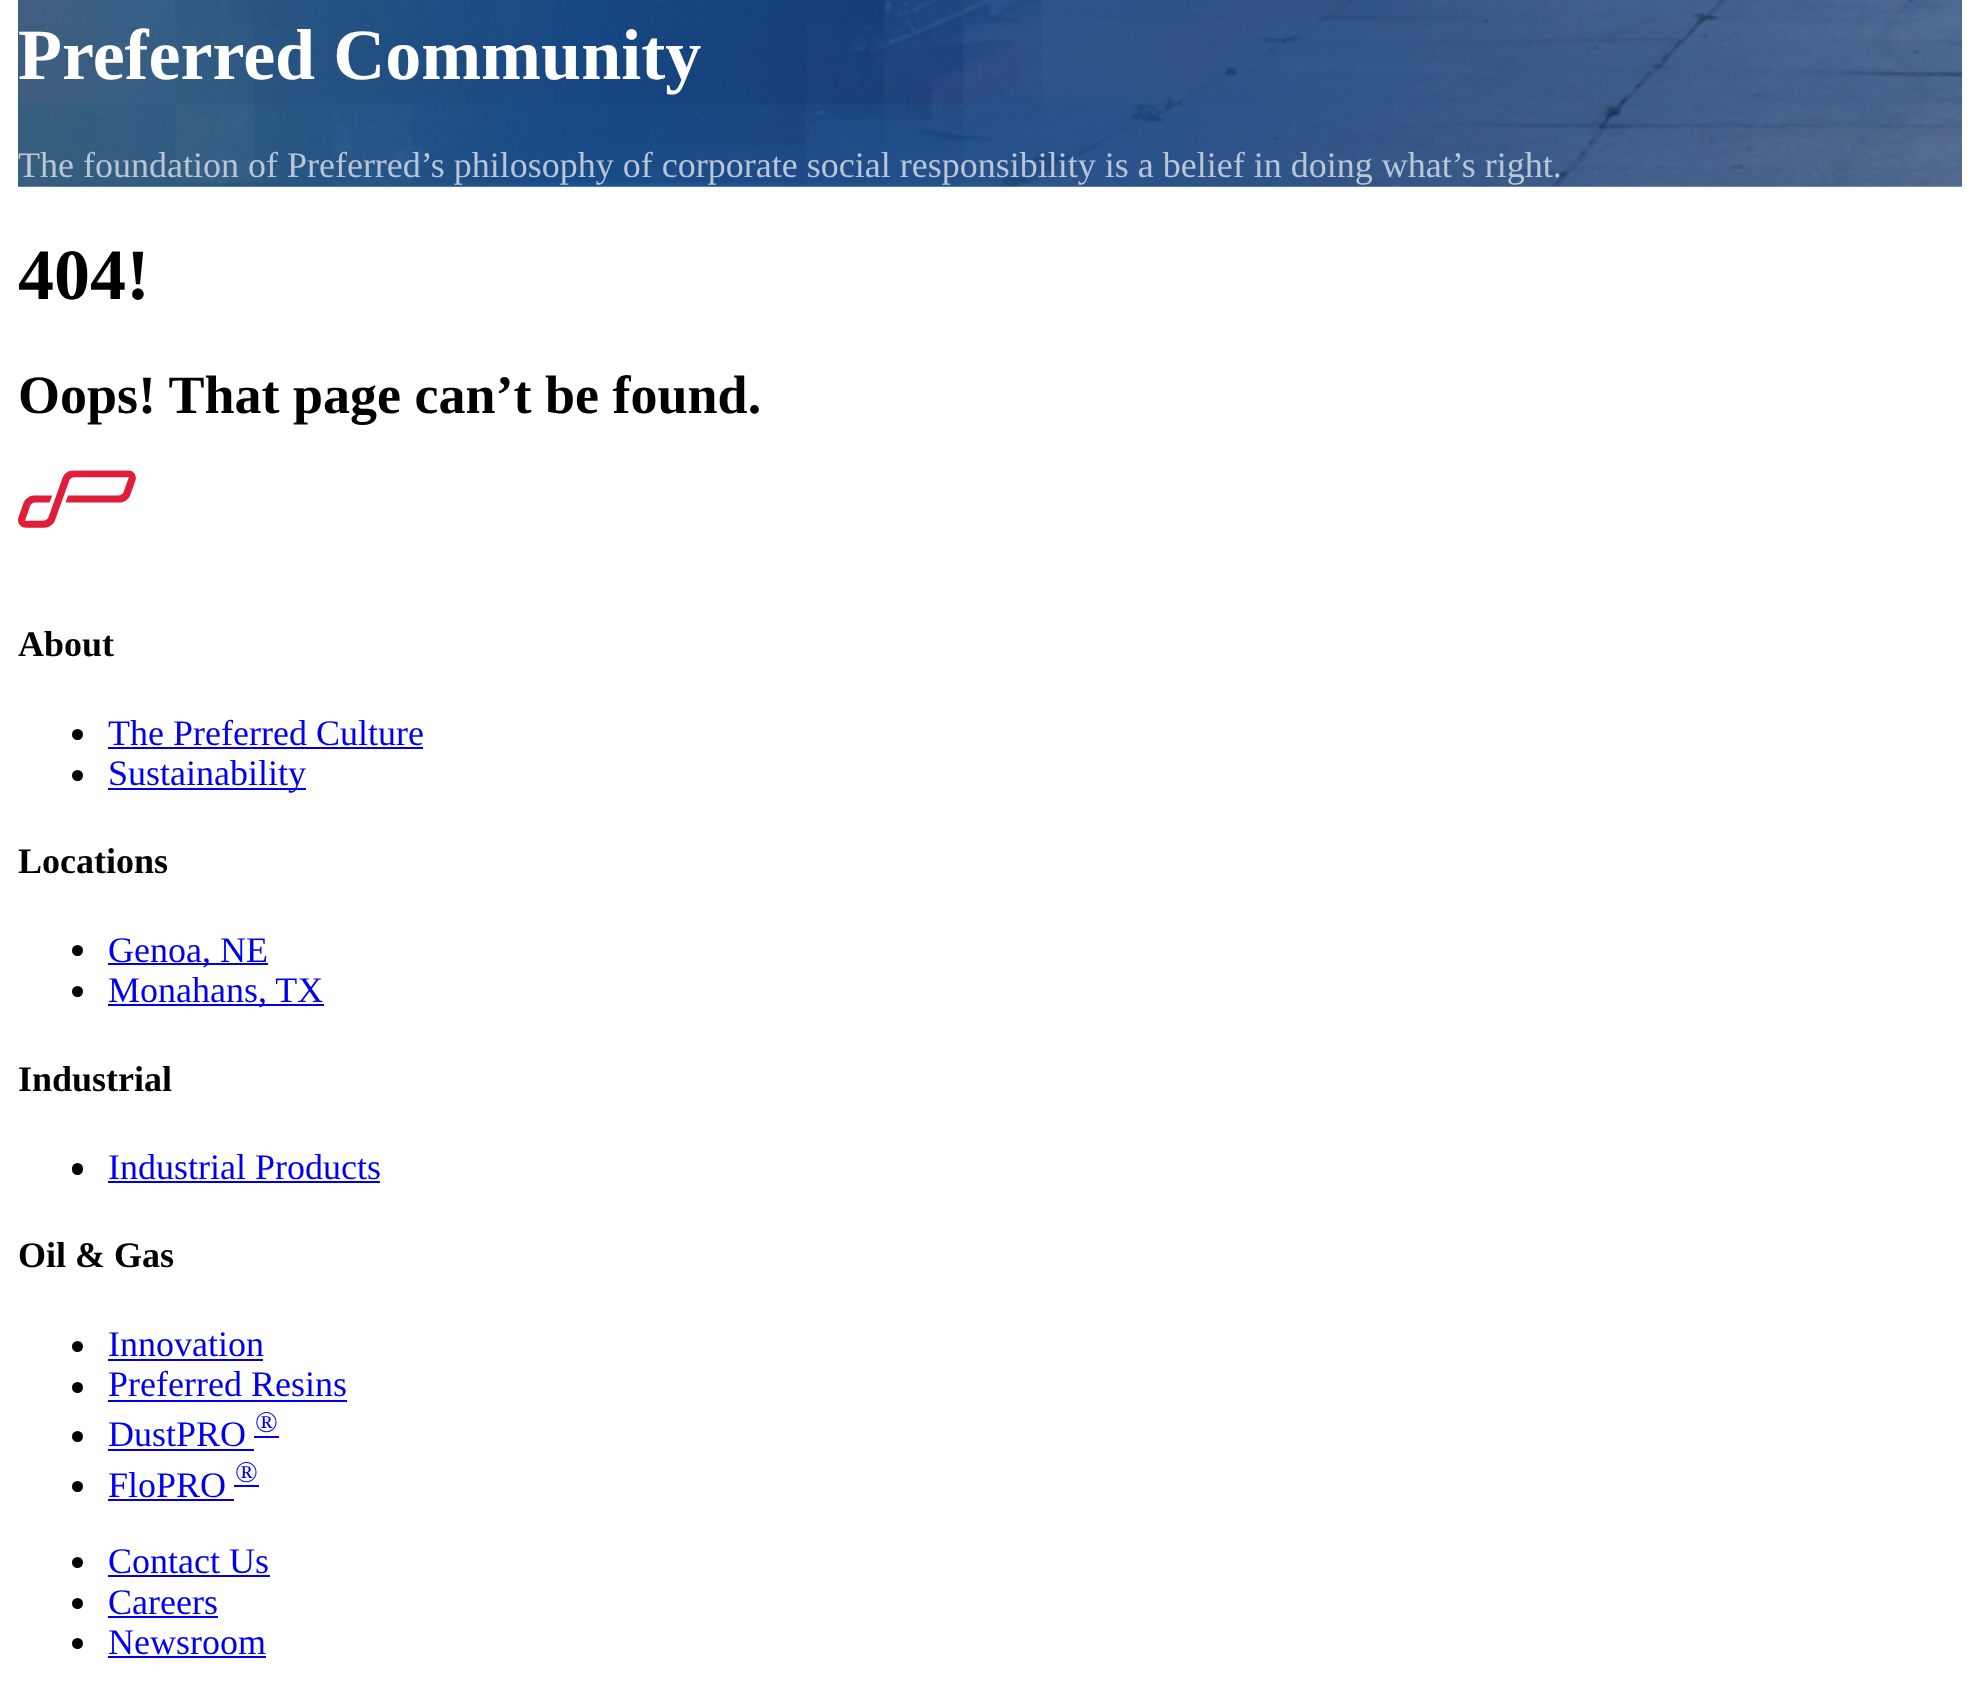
(async () => {
const canvas = document.querySelector("canvas")
canvas.width = 1978
canvas.height = 1697
const c = canvas.getContext("2d")
c.miterLimit = 4
c.fontKerning = "normal"
function T(s,x,y){c.fillText(s,x,y)}
function R(x,y,w,h){c.fillRect(x,y,w,h)}
function Q(x,y,w,h,r){c.beginPath();c.roundRect(x,y,w,h,r);c.fill()}
async function I(src,x,y,w,h){const img=new Image();img.src=src;await img.decode();c.drawImage(img,x,y,w,h)}
c.fillStyle="#fff"
R(0,0,1978,1697)
await I("1.png",18,0,1944,187)
c.font="bold 72px Liberation Serif"
T("Preferred Community",18,79)
c.font="36px Liberation Serif"
c.fillStyle="#b8c6d7"
T("The foundation of Preferred’s philosophy of corporate social responsibility is a belief in doing what’s right.",18,177)
c.font="bold 72px Liberation Serif"
c.fillStyle="#000"
T("404!",18,299)
c.font="bold 54px Liberation Serif"
T("Oops! That page can’t be found.",18,413)
await I("2.png",18,470,118,58)
c.font="bold 36px Liberation Serif"
T("About",18,656)
c.beginPath()
c.arc(77.5,734.5,5.5,0,7)
c.fill()
c.font="36px Liberation Serif"
c.fillStyle="#00e"
T("The Preferred Culture",108,745)
R(108,747,315,2)
c.fillStyle="#000"
c.beginPath()
c.arc(77.5,775.5,5.5,0,7)
c.fill()
c.fillStyle="#00e"
R(108,788,198,2)
T("Sustainability",108,785)
c.font="bold 36px Liberation Serif"
c.fillStyle="#000"
T("Locations",18,873)
c.beginPath()
c.arc(77.5,950.5,5.5,0,7)
c.fill()
c.fillStyle="#00e"
R(108,963,160,2)
c.font="36px Liberation Serif"
T("Genoa, NE",108,962)
c.fillStyle="#000"
c.beginPath()
c.arc(77.5,991.5,5.5,0,7)
c.fill()
c.fillStyle="#00e"
R(108,1004,216,2)
T("Monahans, TX",108,1002)
c.font="bold 36px Liberation Serif"
c.fillStyle="#000"
T("Industrial",18,1091)
Q(72,1163,11,12,5.5)
c.font="36px Liberation Serif"
c.fillStyle="#00e"
T("Industrial Products",108,1179)
R(108,1181,272,2)
c.font="bold 36px Liberation Serif"
c.fillStyle="#000"
T("Oil & Gas",18,1267)
c.beginPath()
c.arc(77.5,1346.5,5.5,0,7)
c.fill()
c.font="36px Liberation Serif"
c.fillStyle="#00e"
T("Innovation",108,1356)
R(108,1359,155,2)
c.fillStyle="#000"
c.beginPath()
c.arc(77.5,1387.5,5.5,0,7)
c.fill()
c.fillStyle="#00e"
T("Preferred Resins",108,1396)
R(108,1400,239,2)
c.fillStyle="#000"
c.beginPath()
c.arc(77.5,1436.5,5.5,0,7)
c.fill()
c.fillStyle="#00e"
T("DustPRO",108,1446)
R(108,1449,146,2)
R(254,1436,25,2)
c.font="30px Liberation Serif"
T("®",255,1432)
c.fillStyle="#000"
c.beginPath()
c.arc(77.5,1486.5,5.5,0,7)
c.fill()
c.font="36px Liberation Serif"
c.fillStyle="#00e"
T("FloPRO",108,1497)
R(108,1499,126,2)
R(234,1485,25,2)
c.font="30px Liberation Serif"
T("®",235,1482)
c.fillStyle="#000"
c.beginPath()
c.arc(77.5,1562.5,5.5,0,7)
c.fill()
c.font="36px Liberation Serif"
c.fillStyle="#00e"
T("Contact Us",108,1573)
R(108,1575,162,2)
c.fillStyle="#000"
c.beginPath()
c.arc(77.5,1603.5,5.5,0,7)
c.fill()
c.fillStyle="#00e"
T("Careers",108,1614)
R(108,1616,110,2)
c.fillStyle="#000"
c.beginPath()
c.arc(77.5,1643.5,5.5,0,7)
c.fill()
c.fillStyle="#00e"
T("Newsroom",108,1654)
R(108,1656,158,2)
})()
